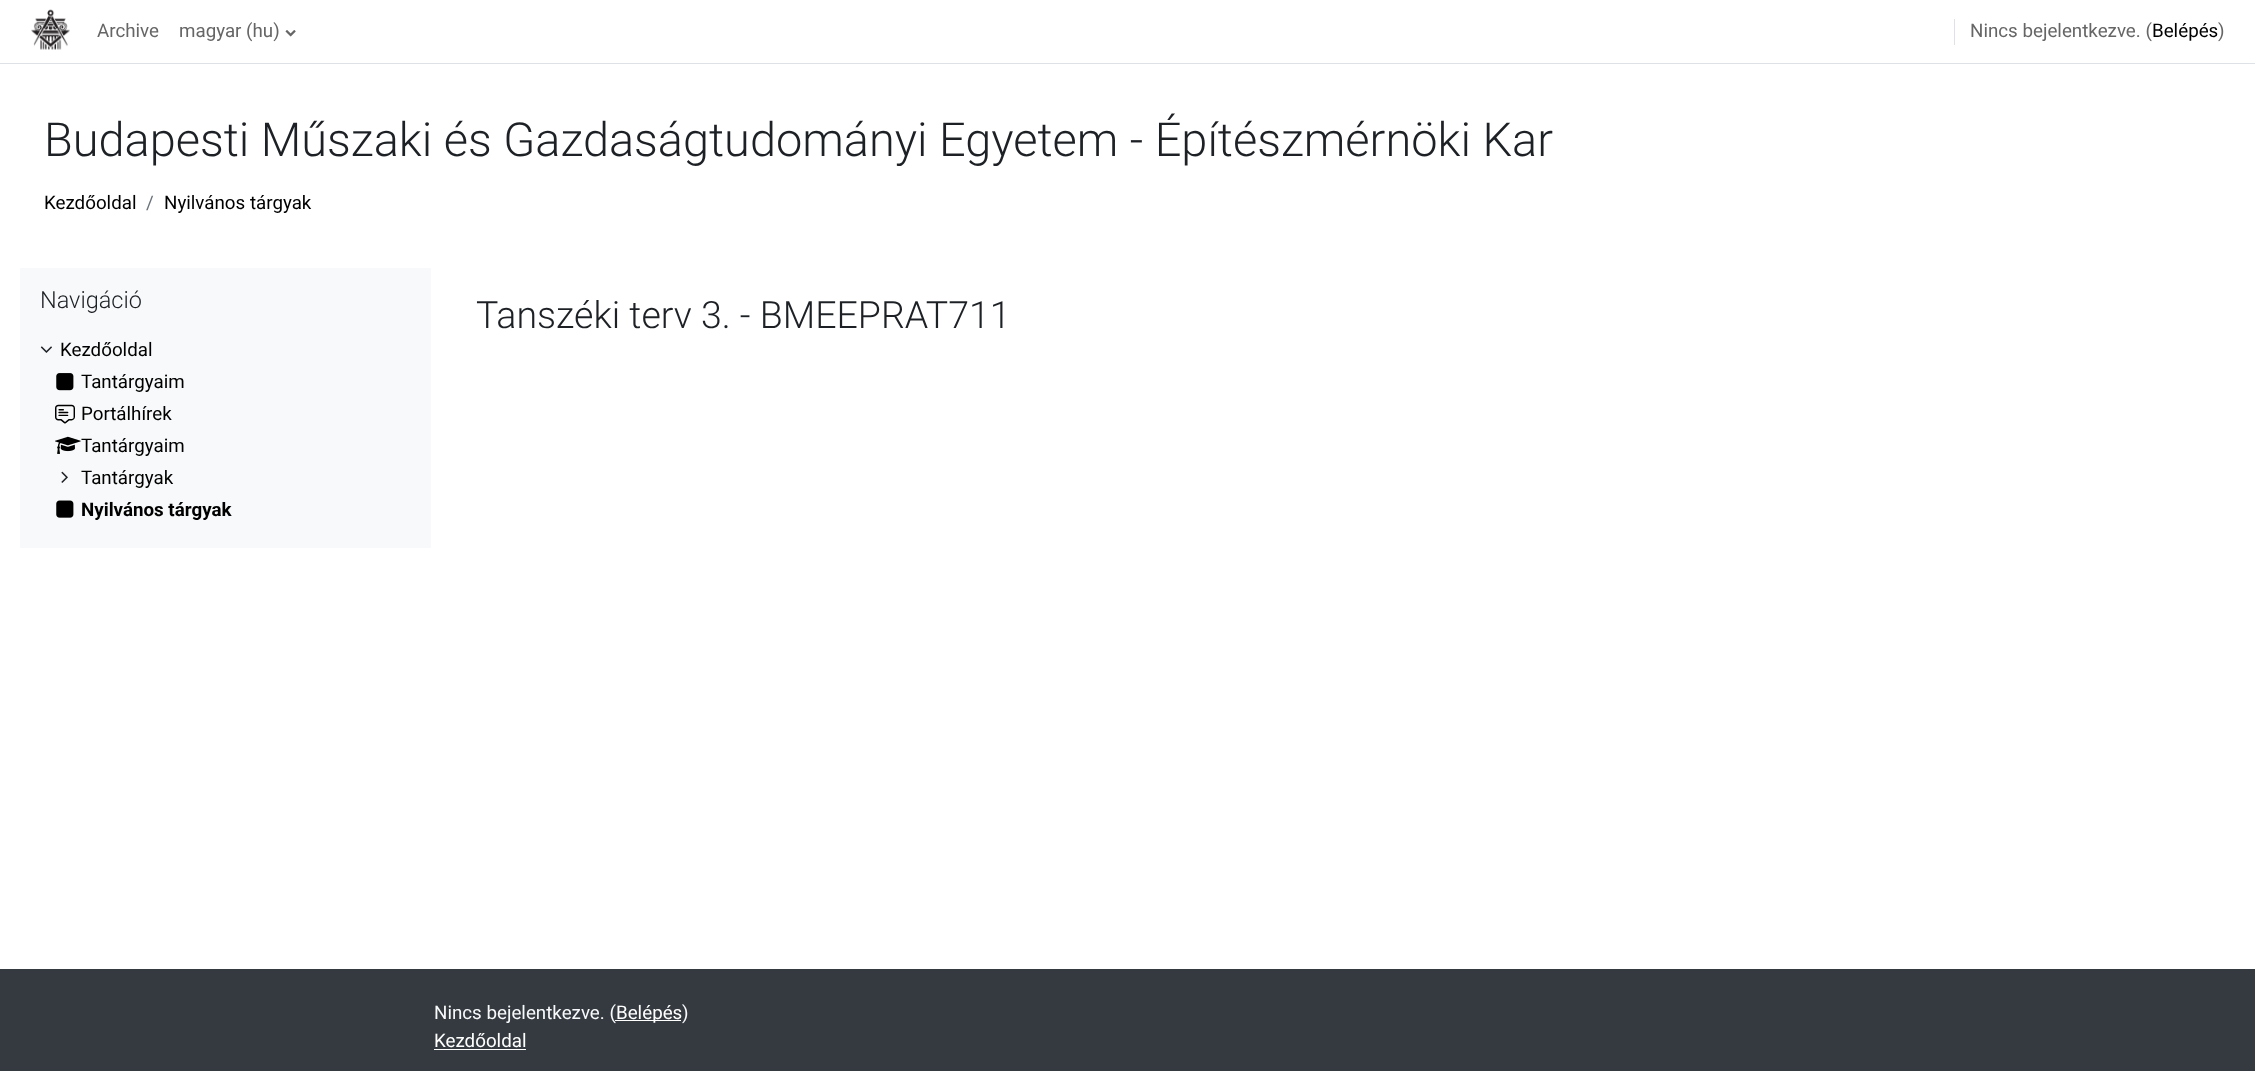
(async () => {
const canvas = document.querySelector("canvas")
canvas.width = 2255
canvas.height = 1071
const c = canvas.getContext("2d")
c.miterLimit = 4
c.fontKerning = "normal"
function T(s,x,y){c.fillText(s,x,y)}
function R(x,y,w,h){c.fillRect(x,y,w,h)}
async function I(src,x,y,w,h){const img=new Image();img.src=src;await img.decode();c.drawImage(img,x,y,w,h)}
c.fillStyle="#fff"
R(0,0,2255,1071)
c.fillStyle="#dee2e6"
R(0,63,2255,1)
await I("1.png",31,9,39,41)
c.font="18.75px Roboto"
c.fillStyle="#666"
T("Archive",97,37)
T("magyar (hu)",179,37)
await I("2.png",285,30,11,7)
c.fillStyle="#dee2e6"
R(1954,19,1,26)
c.fillStyle="#666"
T("Nincs bejelentkezve. (",1970,37)
c.fillStyle="#000"
T("Belépés",2152,37)
c.fillStyle="#666"
T(")",2218,37)
c.font="300 46.9px Roboto"
c.fillStyle="#1d2125"
T("Budapesti Műszaki és Gazdaságtudományi Egyetem - Építészmérnöki Kar",44,156)
c.font="18.75px Roboto"
c.fillStyle="#000"
T("Kezdőoldal",44,209)
c.fillStyle="#6a737b"
T("/",146,209)
c.fillStyle="#000"
T("Nyilvános tárgyak",164,209)
c.fillStyle="#f8f9fa"
R(20,268,411,280)
c.font="300 23.5px Roboto"
c.fillStyle="#1d2125"
T("Navigáció",40,308)
await I("3.png",40,346,12,7)
c.font="18.75px Roboto"
c.fillStyle="#000"
T("Kezdőoldal",60,356)
await I("4.png",56,373,18,18)
T("Tantárgyaim",81,388)
await I("5.png",55,404,20,20)
T("Portálhírek",81,420)
await I("6.png",55,436,26,18)
T("Tantárgyaim",81,452)
await I("7.png",61,471,7,12)
T("Tantárgyak",81,484)
await I("8.png",56,500,18,18)
c.font="bold 18.75px Roboto"
T("Nyilvános tárgyak",81,516)
c.font="300 37.5px Roboto"
c.fillStyle="#1d2125"
T("Tanszéki terv 3. - BMEEPRAT711",476,328)
c.fillStyle="#343a40"
R(0,969,2255,102)
c.font="18.75px Roboto"
c.fillStyle="#f8f9fa"
T("Nincs bejelentkezve. (",434,1019)
c.fillStyle="#fff"
R(615,1020,66,1)
T("Belépés",616,1019)
c.fillStyle="#f8f9fa"
T(")",682,1019)
c.fillStyle="#fff"
T("Kezdőoldal",434,1047)
R(434,1049,92,1)
})()
